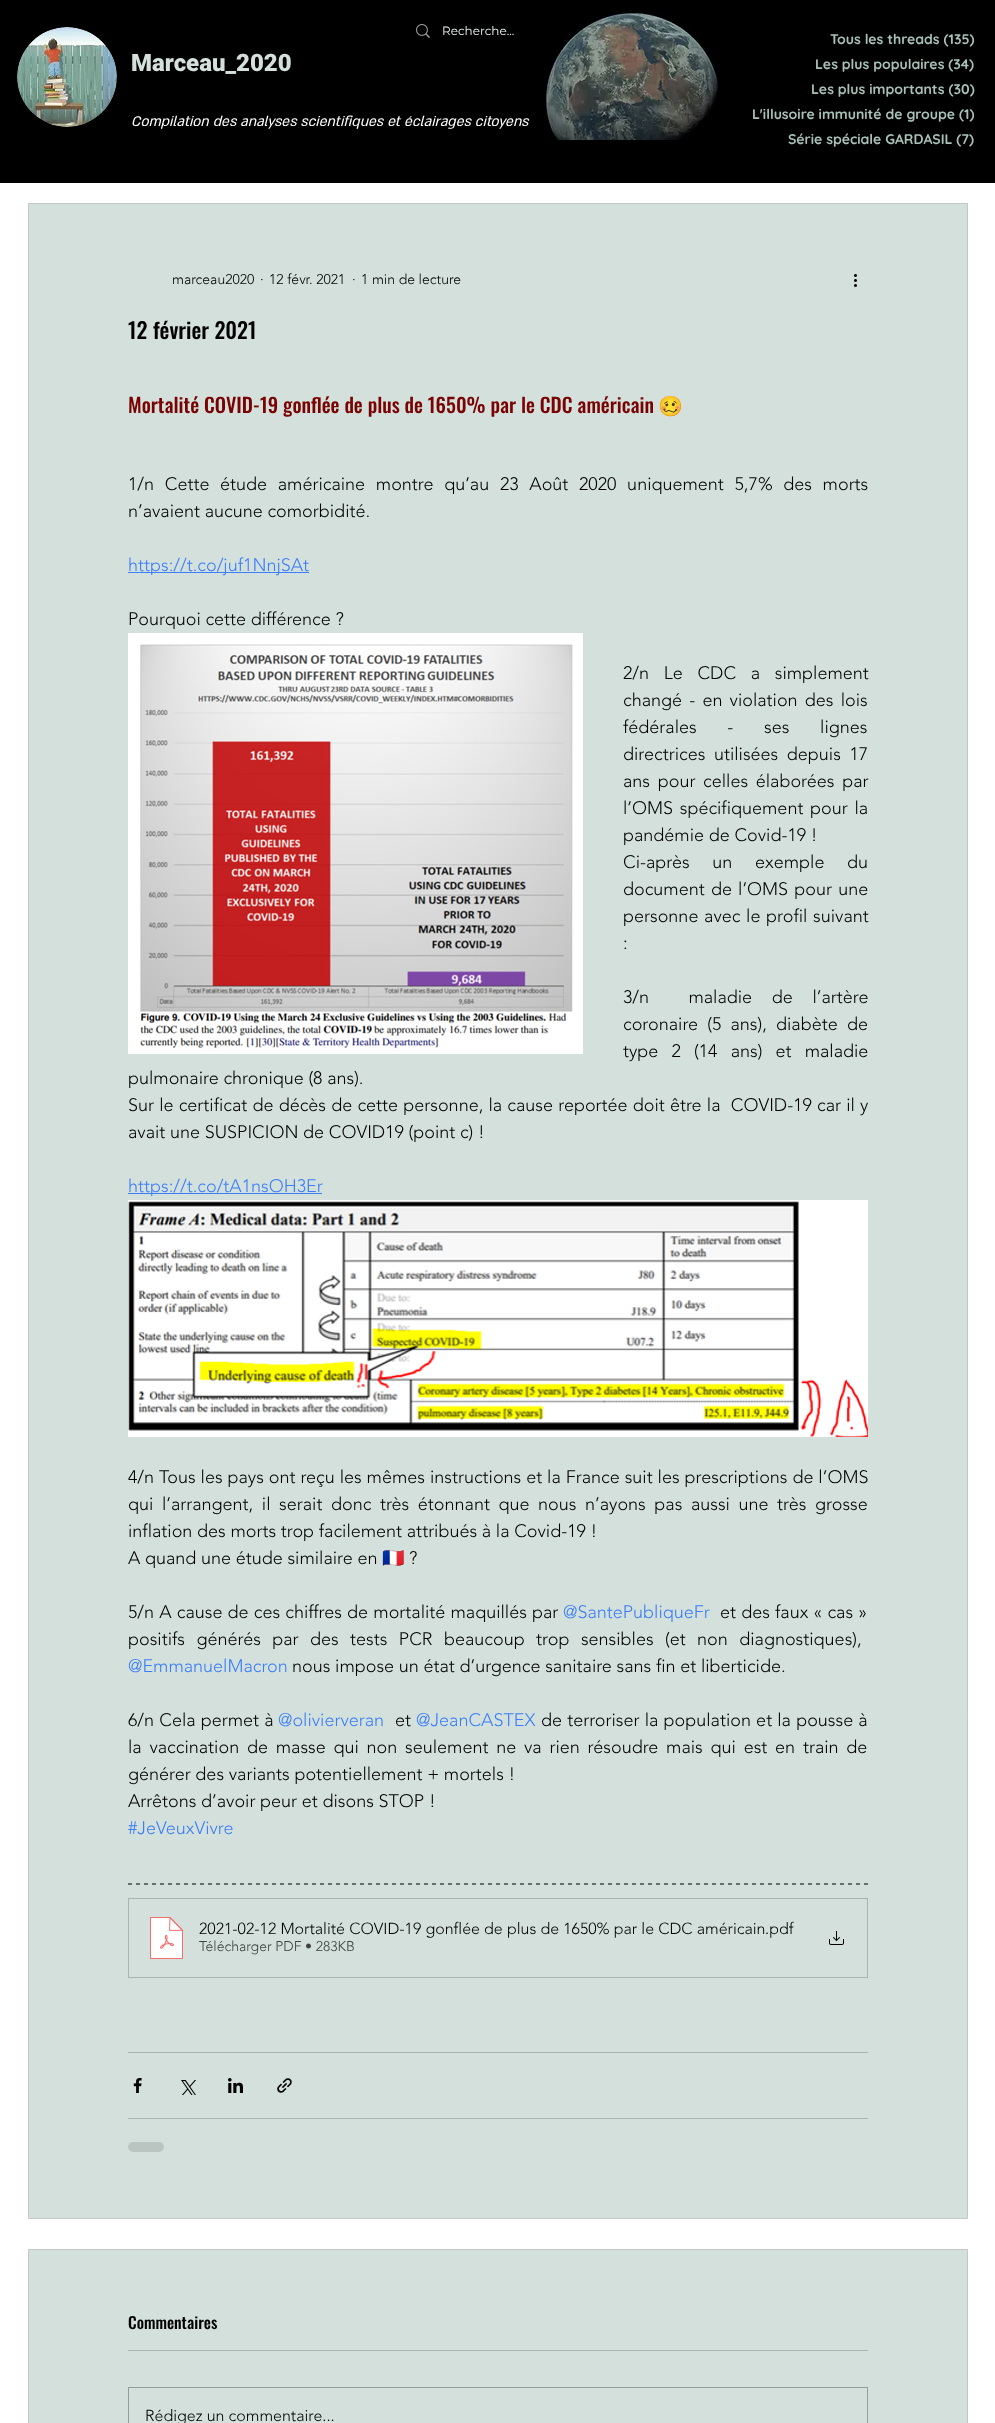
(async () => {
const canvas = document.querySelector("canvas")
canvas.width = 995
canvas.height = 2423
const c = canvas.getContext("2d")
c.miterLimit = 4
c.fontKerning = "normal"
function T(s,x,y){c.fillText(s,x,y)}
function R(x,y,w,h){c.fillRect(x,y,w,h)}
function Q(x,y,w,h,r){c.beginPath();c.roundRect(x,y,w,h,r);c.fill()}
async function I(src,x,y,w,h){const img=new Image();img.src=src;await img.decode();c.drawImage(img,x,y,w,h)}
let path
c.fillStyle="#fff"
R(0,0,995,2423)
c.fillStyle="#000"
R(0,0,995,183)
await I("1.png",545,10,174,130)
await I("2.png",17,27,100,100)
c.font="900 24px Roboto"
c.fillStyle="#d3e0db"
T("Marceau_2020",131,71)
await I("3.png",416,24,14,14)
c.font="12px Montserrat"
c.fillStyle="#eaf4f4"
T("Recherche...",442,35)
c.font="italic 16px 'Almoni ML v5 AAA'"
c.fillStyle="#fff"
T("Compilation des analyses scientifiques et éclairages citoyens",131,126)
c.font="bold 14px Quicksand"
c.fillStyle="#a8c1b7"
T("Tous les threads (135)",830,44)
T("Les plus populaires (34)",815,69)
T("Les plus importants (30)",811,94)
T("L'illusoire immunité de groupe (1)",752,119)
T("Série spéciale GARDASIL (7)",788,144)
c.fillStyle="#d3e0db"
c.beginPath()
c.rect(28.5,203.5,939,2015)
c.fill()
c.strokeStyle="#c4c7c6"
c.stroke()
c.font="300 14px 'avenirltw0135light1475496'"
c.fillStyle="#000"
T("marceau2020",172,284)
T("·",260,284)
T("12 févr. 2021",269,284)
T("·",352,284)
T("1 min de lecture",361,284)
await I("4.png",854,274,3,13)
c.font="500 22px Oswald"
T("12 février 2021",128,339)
c.font="500 20px Oswald"
c.fillStyle="#790303"
T("Mortalité COVID-19 gonflée de plus de 1650% par le CDC américain",128,413)
c.font="20px Noto Color Emoji"
T("🥴",658,413)
c.wordSpacing="6px"
c.font="300 18px 'avenirltw0135light1475496'"
c.fillStyle="#000"
T("1/n Cette étude américaine montre qu’au 23 Août 2020 uniquement 5,7% des morts",128,490)
c.wordSpacing="0px"
T("n’avaient aucune comorbidité.",128,517)
c.fillStyle="#3c7efa"
R(128,572,181,1)
T("https://t.co/juf1NnjSAt",128,571)
c.fillStyle="#000"
T("Pourquoi cette différence ?",128,625)
await I("5.png",128,633,455,421)
c.wordSpacing="10px"
T("2/n Le CDC a simplement",623,679)
c.wordSpacing="2.5px"
T("changé - en violation des lois",623,706)
c.wordSpacing="26px"
T("fédérales - ses lignes",623,733)
c.wordSpacing="3.9px"
T("directrices utilisées depuis 17",623,760)
c.wordSpacing="3px"
T("ans pour celles élaborées par",623,787)
c.wordSpacing="2px"
T("l’OMS spécifiquement pour la",623,814)
c.wordSpacing="0px"
T("pandémie de Covid-19 !",623,841)
c.wordSpacing="18px"
T("Ci-après un exemple du",623,868)
c.wordSpacing="1.5px"
T("document de l’OMS pour une",623,895)
c.wordSpacing="1px"
T("personne avec le profil suivant",623,922)
c.wordSpacing="0px"
T(":",623,949)
c.wordSpacing="15px"
T("3/n  maladie de l’artère",623,1003)
c.wordSpacing="4.5px"
T("coronaire (5 ans), diabète de",623,1030)
c.wordSpacing="8.5px"
T("type 2 (14 ans) et maladie",623,1057)
c.wordSpacing="0px"
T("pulmonaire chronique (8 ans).",128,1084)
c.wordSpacing="0.5px"
T("Sur le certificat de décès de cette personne, la cause reportée doit être la  COVID-19 car il y",128,1111)
c.wordSpacing="0px"
T("avait une SUSPICION de COVID19 (point c) !",128,1138)
c.fillStyle="#3c7efa"
R(128,1193,194,1)
T("https://t.co/tA1nsOH3Er",128,1192)
await I("6.png",128,1200,740,237)
c.wordSpacing="0.25px"
c.fillStyle="#000"
T("4/n Tous les pays ont reçu les mêmes instructions et la France suit les prescriptions de l’OMS",128,1483)
c.wordSpacing="3.9px"
T("qui l’arrangent, il serait donc très étonnant que nous n’ayons pas aussi une très grosse",128,1510)
c.wordSpacing="0px"
T("inflation des morts trop facilement attribués à la Covid-19 !",128,1537)
T("A quand une étude similaire en",128,1564)
c.font="18px Noto Color Emoji"
T("🇫🇷",382,1564)
c.font="300 18px 'avenirltw0135light1475496'"
T("?",409,1564)
c.wordSpacing="0.5px"
T("5/n A cause de ces chiffres de mortalité maquillés par",128,1618)
c.wordSpacing="0px"
c.fillStyle="#3c7efa"
T("@SantePubliqueFr",563,1618)
c.wordSpacing="0.5px"
c.fillStyle="#000"
T("et des faux « cas »",720,1618)
c.wordSpacing="6.75px"
T("positifs générés par des tests PCR beaucoup trop sensibles (et non diagnostiques),",128,1645)
c.wordSpacing="0px"
c.fillStyle="#3c7efa"
T("@EmmanuelMacron",128,1672)
c.fillStyle="#000"
T("nous impose un état d’urgence sanitaire sans fin et liberticide.",292,1672)
c.wordSpacing="0.5px"
T("6/n Cela permet à",128,1726)
c.wordSpacing="0px"
c.fillStyle="#3c7efa"
T("@olivierveran",278,1726)
c.fillStyle="#000"
T("et",395,1726)
c.fillStyle="#3c7efa"
T("@JeanCASTEX",416,1726)
c.wordSpacing="0.5px"
c.fillStyle="#000"
T("de terroriser la population et la pousse à",541,1726)
c.wordSpacing="3.1px"
T("la vaccination de masse qui non seulement ne va rien résoudre mais qui est en train de",128,1753)
c.wordSpacing="0px"
T("générer des variants potentiellement + mortels !",128,1780)
T("Arrêtons d’avoir peur et disons STOP !",128,1807)
c.fillStyle="#3c7efa"
T("#JeVeuxVivre",128,1834)
path = new Path2D("M128 1884h740")
c.strokeStyle="#000"
c.setLineDash([4,4])
c.stroke(path)
c.strokeStyle="#a9b3af"
c.setLineDash([])
c.strokeRect(128.5,1898.5,739,79)
await I("7.png",150,1917,33,42)
c.font="300 16px 'avenirltw0135light1475496'"
c.fillStyle="#000"
T("2021-02-12 Mortalité COVID-19 gonflée de plus de 1650% par le CDC américain",199,1934)
T(".pdf",765,1934)
c.font="300 14px 'avenirltw0135light1475496'"
c.fillStyle="#3f4342"
T("Télécharger PDF • 283KB",199,1951)
await I("8.png",829,1931,15,14)
c.fillStyle="#a9b3af"
R(128,2052,740,1)
await I("9.png",133,2078,9,15)
await I("10.png",181,2080,15,15)
await I("11.png",228,2078,15,15)
await I("12.png",277,2078,15,15)
R(128,2118,740,1)
c.fillStyle="#bac5c1"
Q(128,2142,36,10,5)
c.fillStyle="#d3e0db"
c.beginPath()
c.rect(28.5,2249.5,939,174)
c.fill()
c.strokeStyle="#c4c7c6"
c.stroke()
c.font="500 16px Oswald"
c.fillStyle="#000"
T("Commentaires",128,2329)
c.fillStyle="#a9b3af"
R(128,2350,740,1)
c.strokeStyle="#949d99"
c.strokeRect(128.5,2387.5,739,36)
c.font="300 16px 'avenirltw0135light1475496'"
c.fillStyle="#000"
T("Rédigez un commentaire...",145,2421)
})()
